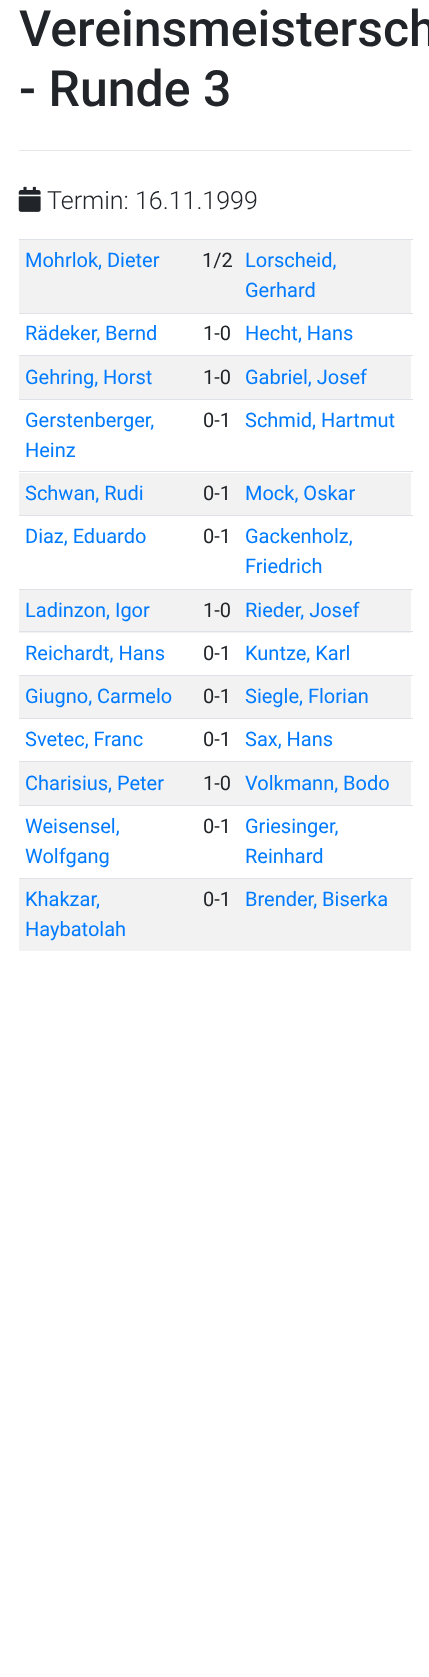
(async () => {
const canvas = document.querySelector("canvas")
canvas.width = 429
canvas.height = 1677
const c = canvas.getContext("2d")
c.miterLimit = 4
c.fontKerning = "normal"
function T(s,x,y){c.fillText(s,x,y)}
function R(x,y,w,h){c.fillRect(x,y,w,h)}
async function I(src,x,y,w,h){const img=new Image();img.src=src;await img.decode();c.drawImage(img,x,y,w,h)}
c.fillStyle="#fff"
R(0,0,429,1677)
c.font="500 50px Roboto"
c.fillStyle="#212529"
T("Vereinsmeistersch",19,46)
T("- Runde 3",19,106)
c.fillStyle="#e6e6e6"
R(19,150,392,1)
await I("1.png",18,186,23,26)
c.font="300 25px Roboto"
c.fillStyle="#212529"
T("Termin: 16.11.1999",47,209)
c.fillStyle="#f2f2f2"
R(19,240,392,73)
c.font="20px Roboto"
c.fillStyle="#007bff"
T("Mohrlok, Dieter",25,267)
c.fillStyle="#212529"
T("1/2",202,267)
c.fillStyle="#dee2e6"
R(19,239,394,1)
c.fillStyle="#007bff"
T("Lorscheid,",245,267)
T("Gerhard",245,297)
T("Rädeker, Bernd",25,340)
c.fillStyle="#212529"
T("1-0",203,340)
c.fillStyle="#dee2e6"
R(19,313,394,1)
c.fillStyle="#007bff"
T("Hecht, Hans",245,340)
c.fillStyle="#f2f2f2"
R(19,356,392,43)
c.fillStyle="#007bff"
T("Gehring, Horst",25,384)
c.fillStyle="#212529"
T("1-0",203,384)
c.fillStyle="#dee2e6"
R(19,355,394,1)
c.fillStyle="#007bff"
T("Gabriel, Josef",245,384)
T("Gerstenberger,",25,427)
T("Heinz",25,457)
c.fillStyle="#212529"
T("0-1",203,427)
c.fillStyle="#dee2e6"
R(19,399,394,1)
c.fillStyle="#007bff"
T("Schmid, Hartmut",245,427)
c.fillStyle="#f2f2f2"
R(19,473,392,42)
c.fillStyle="#007bff"
T("Schwan, Rudi",25,500)
c.fillStyle="#212529"
T("0-1",203,500)
c.fillStyle="#dee2e6"
R(19,471,394,1)
c.fillStyle="#007bff"
T("Mock, Oskar",245,500)
T("Diaz, Eduardo",25,543)
c.fillStyle="#212529"
T("0-1",203,543)
c.fillStyle="#dee2e6"
R(19,515,394,1)
c.fillStyle="#007bff"
T("Gackenholz,",245,543)
T("Friedrich",245,573)
c.fillStyle="#f2f2f2"
R(19,590,392,43)
c.fillStyle="#007bff"
T("Ladinzon, Igor",25,617)
c.fillStyle="#212529"
T("1-0",203,617)
c.fillStyle="#dee2e6"
R(19,589,394,1)
c.fillStyle="#007bff"
T("Rieder, Josef",245,617)
T("Reichardt, Hans",25,660)
c.fillStyle="#212529"
T("0-1",203,660)
c.fillStyle="#dee2e6"
R(19,631,394,1)
c.fillStyle="#007bff"
T("Kuntze, Karl",245,660)
c.fillStyle="#f2f2f2"
R(19,676,392,42)
c.fillStyle="#007bff"
T("Giugno, Carmelo",25,703)
c.fillStyle="#212529"
T("0-1",203,703)
c.fillStyle="#dee2e6"
R(19,675,394,1)
c.fillStyle="#007bff"
T("Siegle, Florian",245,703)
T("Svetec, Franc",25,746)
c.fillStyle="#212529"
T("0-1",203,746)
c.fillStyle="#dee2e6"
R(19,718,394,1)
c.fillStyle="#007bff"
T("Sax, Hans",245,746)
c.fillStyle="#f2f2f2"
R(19,762,392,43)
c.fillStyle="#007bff"
T("Charisius, Peter",25,790)
c.fillStyle="#212529"
T("1-0",203,790)
c.fillStyle="#dee2e6"
R(19,761,394,1)
c.fillStyle="#007bff"
T("Volkmann, Bodo",245,790)
T("Weisensel,",25,833)
T("Wolfgang",25,863)
c.fillStyle="#212529"
T("0-1",203,833)
c.fillStyle="#dee2e6"
R(19,805,394,1)
c.fillStyle="#007bff"
T("Griesinger,",245,833)
T("Reinhard",245,863)
c.fillStyle="#f2f2f2"
R(19,879,392,72)
c.fillStyle="#007bff"
T("Khakzar,",25,906)
T("Haybatolah",25,936)
c.fillStyle="#212529"
T("0-1",203,906)
c.fillStyle="#dee2e6"
R(19,878,394,1)
c.fillStyle="#007bff"
T("Brender, Biserka",245,906)
})()
